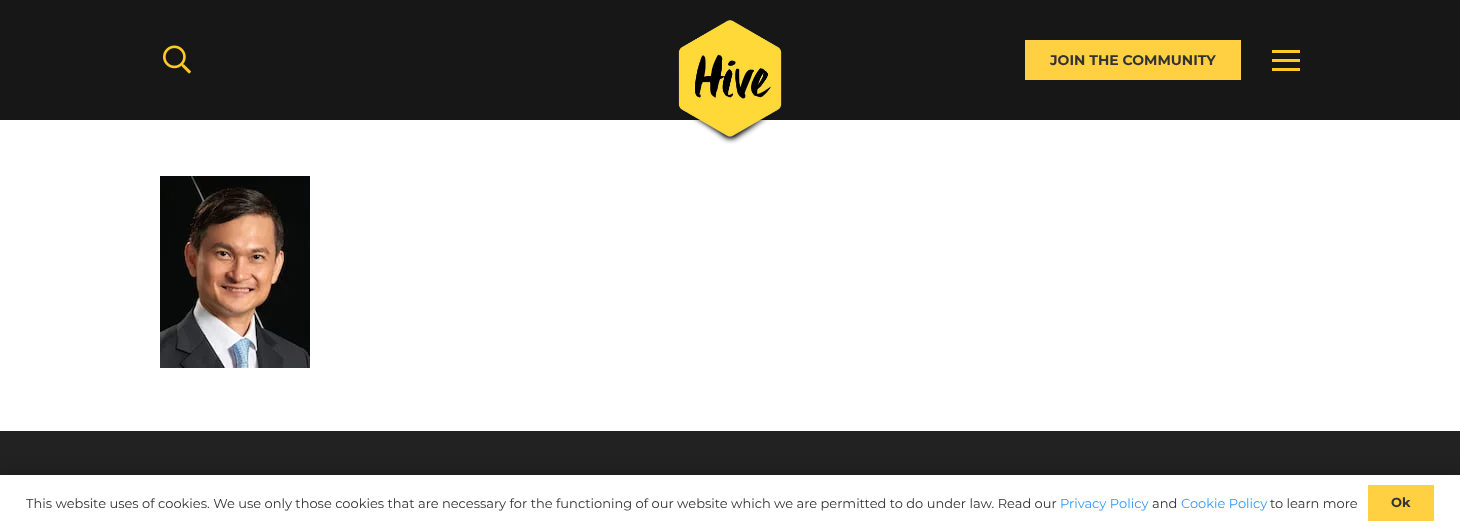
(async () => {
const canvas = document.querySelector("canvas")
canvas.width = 1460
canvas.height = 531
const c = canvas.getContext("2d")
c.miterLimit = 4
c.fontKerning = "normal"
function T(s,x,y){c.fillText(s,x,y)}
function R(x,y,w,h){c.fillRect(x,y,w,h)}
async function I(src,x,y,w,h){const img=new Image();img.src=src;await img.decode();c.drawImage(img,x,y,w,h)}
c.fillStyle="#fff"
R(0,0,1460,531)
c.fillStyle="#171717"
R(0,0,1460,120)
await I("1.png",163,45,28,29)
await I("2.png",678,20,104,124)
c.fillStyle="#ffd042"
R(1025,40,216,40)
c.font="bold 14px Montserrat"
c.fillStyle="#333"
T("JOIN THE COMMUNITY",1050,65)
c.fillStyle="#ffc923"
R(1272,59,28,3)
R(1272,50,28,3)
R(1272,68,28,3)
await I("3.png",160,176,150,192)
c.fillStyle="#222"
R(0,431,1460,44)
c.fillStyle="#00000026"
c.filter="blur(7.5px)"
c.beginPath()
c.rect(0,470,1460,56)
c.fill()
c.filter="none"
c.fillStyle="#fff"
R(0,475,1460,56)
c.font="13px Montserrat"
c.fillStyle="#333"
T("This website uses of cookies. We use only those cookies that are necessary for the functioning of our website which we are permitted to do under law. Read our",26,508)
c.fillStyle="#359cf9"
T("Privacy Policy",1060,508)
c.fillStyle="#333"
T("and",1152,508)
c.fillStyle="#359cf9"
T("Cookie Policy",1181,508)
c.fillStyle="#333"
T("to learn more",1270,508)
c.fillStyle="#ffd042"
R(1368,485,66,36)
c.font="bold 13px Montserrat"
c.fillStyle="#333"
T("Ok",1391,507)
})()
